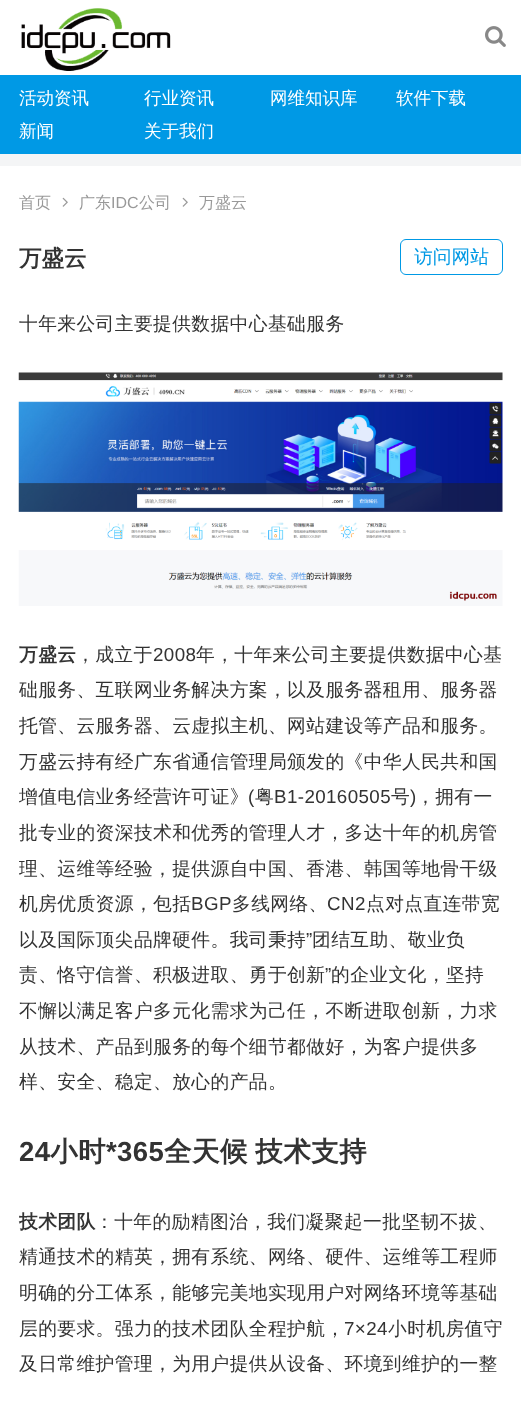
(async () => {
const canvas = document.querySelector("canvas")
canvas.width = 521
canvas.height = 1401
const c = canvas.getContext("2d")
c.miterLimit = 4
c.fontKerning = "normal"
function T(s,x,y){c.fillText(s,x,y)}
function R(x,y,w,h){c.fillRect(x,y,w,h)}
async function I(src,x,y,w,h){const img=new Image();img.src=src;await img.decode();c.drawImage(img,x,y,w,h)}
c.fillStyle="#f4f5f6"
R(0,0,521,1401)
c.fillStyle="#fff"
R(0,0,521,75)
await I("1.png",21,8,150,63)
await I("2.png",485,26,21,21)
c.fillStyle="#0099e5"
R(0,75,521,79)
c.font="500 17.5px WenQuanYi Zen Hei"
c.fillStyle="#fff"
T("活动资讯",19,104)
T("行业资讯",144,104)
T("网维知识库",270,104)
T("软件下载",396,104)
T("新闻",19,137)
T("关于我们",144,137)
R(0,166,521,1235)
c.font="500 16px WenQuanYi Zen Hei"
c.fillStyle="#999"
T("首页",19,208)
await I("3.png",62,197,6,10)
T("广东",79,208)
c.font="16px Liberation Sans"
T("IDC",111,208)
c.font="500 16px WenQuanYi Zen Hei"
T("公司",139,208)
await I("3.png",182,197,6,10)
T("万盛云",199,208)
c.font="bold 22.5px WenQuanYi Zen Hei"
c.fillStyle="#333"
T("万盛云",19,266)
c.beginPath()
c.roundRect(400.5,239.5,102,35,5.5)
c.strokeStyle="#0099e5"
c.stroke()
c.font="500 18.75px WenQuanYi Zen Hei"
c.fillStyle="#0099e5"
T("访问网站",414,263)
c.letterSpacing="0.4px"
c.fillStyle="#333"
T("十年来公司主要提供数据中心基础服务",19,330)
await I("4.png",18,372,485,234)
c.font="bold 18.75px WenQuanYi Zen Hei"
T("万盛云",19,661)
c.font="500 18.75px WenQuanYi Zen Hei"
T("，成立于",76,661)
c.font="18.75px Liberation Sans"
T("2008",153,661)
c.font="500 18.75px WenQuanYi Zen Hei"
T("年，十年来公司主要提供数据中心基",196,661)
T("础服务、互联网业务解决方案，以及服务器租用、服务器",19,696)
T("托管、云服务器、云虚拟主机、网站建设等产品和服务。",19,732)
T("万盛云持有经广东省通信管理局颁发的《中华人民共和国",19,768)
T("增值电信业务经营许可证》",19,803)
c.font="18.75px Liberation Sans"
T("(",248,803)
c.font="500 18.75px WenQuanYi Zen Hei"
T("粤",255,803)
c.font="18.75px Liberation Sans"
T("B1-20160505",274,803)
c.font="500 18.75px WenQuanYi Zen Hei"
T("号",391,803)
c.font="18.75px Liberation Sans"
T(")",410,803)
c.font="500 18.75px WenQuanYi Zen Hei"
T("，拥有一",416,803)
T("批专业的资深技术和优秀的管理人才，多达十年的机房管",19,839)
T("理、运维等经验，提供源自中国、香港、韩国等地骨干级",19,875)
T("机房优质资源，包括",19,910)
c.font="18.75px Liberation Sans"
T("BGP",191,910)
c.font="500 18.75px WenQuanYi Zen Hei"
T("多线网络、",232,910)
c.font="18.75px Liberation Sans"
T("CN2",327,910)
c.font="500 18.75px WenQuanYi Zen Hei"
T("点对点直连带宽",366,910)
T("以及国际顶尖品牌硬件。我司秉持",19,946)
c.font="18.75px Liberation Sans"
T("”",306,946)
c.font="500 18.75px WenQuanYi Zen Hei"
T("团结互助、敬业负",312,946)
T("责、恪守信誉、积极进取、勇于创新",19,981)
c.font="18.75px Liberation Sans"
T("”",325,981)
c.font="500 18.75px WenQuanYi Zen Hei"
T("的企业文化，坚持",331,981)
T("不懈以满足客户多元化需求为己任，不断进取创新，力求",19,1017)
T("从技术、产品到服务的每个细节都做好，为客户提供多",19,1053)
T("样、安全、稳定、放心的产品。",19,1088)
c.font="bold 27.5px Liberation Sans"
T("24",19,1161)
c.font="bold 27.5px WenQuanYi Zen Hei"
T("小时",50,1161)
c.font="bold 27.5px Liberation Sans"
T("*365",106,1161)
c.wordSpacing="-1px"
c.font="bold 27.5px WenQuanYi Zen Hei"
T("全天候 技术支持",164,1161)
c.wordSpacing="0px"
c.font="bold 18.75px WenQuanYi Zen Hei"
T("技术团队",19,1228)
c.font="500 18.75px WenQuanYi Zen Hei"
T("：十年的励精图治，我们凝聚起一批坚韧不拔、",95,1228)
T("精通技术的精英，拥有系统、网络、硬件、运维等工程师",19,1263)
T("明确的分工体系，能够完美地实现用户对网络环境等基础",19,1299)
T("层的要求。强力的技术团队全程护航，",19,1335)
c.font="18.75px Liberation Sans"
T("7×24",344,1335)
c.font="500 18.75px WenQuanYi Zen Hei"
T("小时机房值守",388,1335)
T("及日常维护管理，为用户提供从设备、环境到维护的一整",19,1370)
})()
